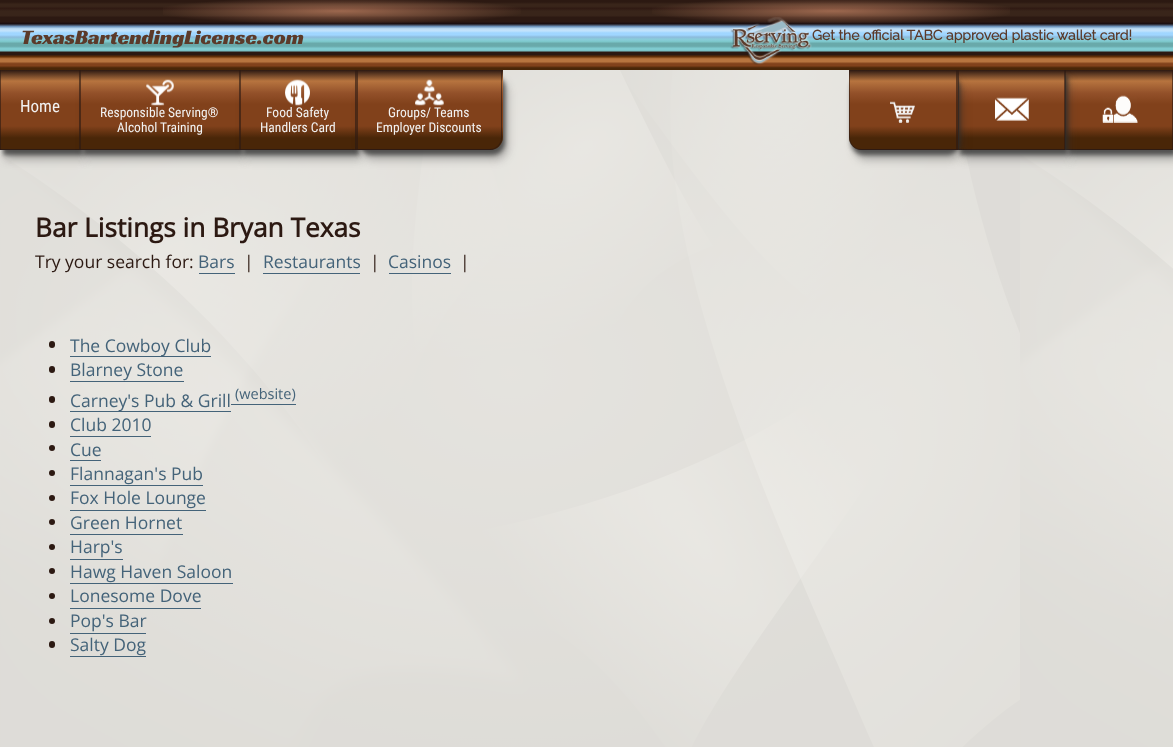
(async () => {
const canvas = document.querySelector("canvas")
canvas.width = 1173
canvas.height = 747
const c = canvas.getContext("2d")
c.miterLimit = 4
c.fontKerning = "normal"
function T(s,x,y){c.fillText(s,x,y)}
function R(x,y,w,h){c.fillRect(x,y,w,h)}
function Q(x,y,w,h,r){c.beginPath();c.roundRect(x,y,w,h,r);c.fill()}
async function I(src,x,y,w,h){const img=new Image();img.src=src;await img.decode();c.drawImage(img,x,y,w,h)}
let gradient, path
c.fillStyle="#fff"
R(0,0,1173,747)
await I("1.png",0,70,1173,677)
gradient = c.createLinearGradient(587,0,587,70)
gradient.addColorStop(0,"#2c1912")
gradient.addColorStop(.03,"#2c1912")
gradient.addColorStop(.06,"#39251a")
gradient.addColorStop(.09,"#39251a")
gradient.addColorStop(.12,"#301a13")
gradient.addColorStop(.16,"#39251a")
gradient.addColorStop(.22,"#39251a")
gradient.addColorStop(.25,"#2c1912")
gradient.addColorStop(.31,"#2c1912")
gradient.addColorStop(.34,"#1a0e10")
gradient.addColorStop(.38,"#7198c1")
gradient.addColorStop(.41,"#bcdbf2")
gradient.addColorStop(.44,"#c3e3fc")
gradient.addColorStop(.47,"#a0d6ff")
gradient.addColorStop(.5,"#a0d6ff")
gradient.addColorStop(.53,"#8cbbdb")
gradient.addColorStop(.56,"#8accda")
gradient.addColorStop(.59,"#7fcacf")
gradient.addColorStop(.62,"#69a9aa")
gradient.addColorStop(.66,"#69a9aa")
gradient.addColorStop(.69,"#7fcacf")
gradient.addColorStop(.72,"#7fcacf")
gradient.addColorStop(.75,"#2c1912")
gradient.addColorStop(.78,"#2c1912")
gradient.addColorStop(.81,"#663107")
gradient.addColorStop(.84,"#b7743f")
gradient.addColorStop(.88,"#b7743f")
gradient.addColorStop(.91,"#81411b")
gradient.addColorStop(.94,"#81411b")
gradient.addColorStop(.97,"#492608")
gradient.addColorStop(1,"#492608")
c.fillStyle = gradient
R(0,0,1173,70)
gradient = c.createRadialGradient(833,154.39,0,833,154.39,1179)
gradient.addColorStop(0,"#ffaa8280")
gradient.addColorStop(.16,"#ffaa8200")
c.fillStyle = gradient
c.beginPath()
c.rect(652,0,358,24)
c.save()
c.clip()
c.scale(1,84 / 1179)
c.fillRect(0,0,1173,10485)
c.restore()
gradient = c.createRadialGradient(340,154.39,0,340,154.39,1179)
gradient.addColorStop(0,"#ffaa8280")
gradient.addColorStop(.16,"#ffaa8200")
c.fillStyle = gradient
c.beginPath()
c.rect(163,0,358,24)
c.save()
c.clip()
c.scale(1,84 / 1179)
c.fillRect(0,0,1173,10485)
c.restore()
c.font="21px Racing Sans One"
c.fillStyle="#5b3a2a"
T("TexasBartendingLicense.com",21,44)
await I("2.png",730,17,82,48)
c.font="bold 14px Raleway"
T("Get the official TABC approved plastic wallet card!",812,40)
c.fillStyle="#2c2c2c4d"
c.filter="blur(4.5px)"
c.beginPath()
c.rect(5,80,80,80)
c.fill()
c.filter="none"
c.fillStyle="#2c2c2cb3"
c.filter="blur(2px)"
c.beginPath()
c.rect(3,75,80,80)
c.fill()
c.filter="none"
gradient = c.createLinearGradient(40,70,40,149)
gradient.addColorStop(0,"#2c1912")
gradient.addColorStop(.14,"#b7743f")
gradient.addColorStop(.29,"#93512a")
gradient.addColorStop(.43,"#81411b")
gradient.addColorStop(.71,"#81411b")
gradient.addColorStop(.86,"#492608")
gradient.addColorStop(1,"#492608")
c.fillStyle = gradient
R(0,70,80,79)
gradient = c.createLinearGradient(40,149,40,228)
gradient.addColorStop(0,"#2c1912")
gradient.addColorStop(.14,"#b7743f")
gradient.addColorStop(.29,"#93512a")
gradient.addColorStop(.43,"#81411b")
gradient.addColorStop(.71,"#81411b")
gradient.addColorStop(.86,"#492608")
gradient.addColorStop(1,"#492608")
c.fillStyle = gradient
R(0,149,80,1)
c.fillStyle="#2c191299"
path = new Path2D("M80 70v80l-1-1v-79z")
c.fill(path)
c.fillStyle="#2e1b13"
path = new Path2D("M80 150h-80l1-1h78z")
c.fill(path)
c.fillStyle="#2c191299"
path = new Path2D("M0 150v-80h1v79z")
c.fill(path)
c.font="17px Roboto Condensed"
c.fillStyle="#f2f2f2"
T("Home",20,112)
c.fillStyle="#2c2c2c4d"
c.filter="blur(4.5px)"
c.beginPath()
c.rect(85,80,160,80)
c.fill()
c.filter="none"
c.fillStyle="#2c2c2cb3"
c.filter="blur(2px)"
c.beginPath()
c.rect(83,75,160,80)
c.fill()
c.filter="none"
gradient = c.createLinearGradient(160,70,160,149)
gradient.addColorStop(0,"#2c1912")
gradient.addColorStop(.14,"#b7743f")
gradient.addColorStop(.29,"#93512a")
gradient.addColorStop(.43,"#81411b")
gradient.addColorStop(.71,"#81411b")
gradient.addColorStop(.86,"#492608")
gradient.addColorStop(1,"#492608")
c.fillStyle = gradient
R(80,70,160,79)
gradient = c.createLinearGradient(160,149,160,228)
gradient.addColorStop(0,"#2c1912")
gradient.addColorStop(.14,"#b7743f")
gradient.addColorStop(.29,"#93512a")
gradient.addColorStop(.43,"#81411b")
gradient.addColorStop(.71,"#81411b")
gradient.addColorStop(.86,"#492608")
gradient.addColorStop(1,"#492608")
c.fillStyle = gradient
R(80,149,160,1)
c.fillStyle="#2c191299"
path = new Path2D("M240 70v80l-1-1v-79z")
c.fill(path)
c.fillStyle="#2e1b13"
path = new Path2D("M240 150h-160l1-1h158z")
c.fill(path)
c.fillStyle="#2c191299"
path = new Path2D("M80 150v-80h1v79z")
c.fill(path)
await I("3.png",146,79,28,27)
c.font="13.5px Roboto Condensed"
c.fillStyle="#f2f2f2"
T("Responsible Serving®",100,117)
T("Alcohol Training",117,132)
c.fillStyle="#2c2c2c4d"
c.filter="blur(4.5px)"
c.beginPath()
c.rect(245,80,116,80)
c.fill()
c.filter="none"
c.fillStyle="#2c2c2cb3"
c.filter="blur(2px)"
c.beginPath()
c.rect(243,75,116,80)
c.fill()
c.filter="none"
gradient = c.createLinearGradient(298,70,298,149)
gradient.addColorStop(0,"#2c1912")
gradient.addColorStop(.14,"#b7743f")
gradient.addColorStop(.29,"#93512a")
gradient.addColorStop(.43,"#81411b")
gradient.addColorStop(.71,"#81411b")
gradient.addColorStop(.86,"#492608")
gradient.addColorStop(1,"#492608")
c.fillStyle = gradient
R(240,70,116,79)
gradient = c.createLinearGradient(298,149,298,228)
gradient.addColorStop(0,"#2c1912")
gradient.addColorStop(.14,"#b7743f")
gradient.addColorStop(.29,"#93512a")
gradient.addColorStop(.43,"#81411b")
gradient.addColorStop(.71,"#81411b")
gradient.addColorStop(.86,"#492608")
gradient.addColorStop(1,"#492608")
c.fillStyle = gradient
R(240,149,116,1)
c.fillStyle="#2c191299"
path = new Path2D("M356 70v80l-1-1v-79z")
c.fill(path)
c.fillStyle="#2e1b13"
path = new Path2D("M356 150h-116l1-1h114z")
c.fill(path)
c.fillStyle="#2c191299"
path = new Path2D("M240 150v-80h1v79z")
c.fill(path)
await I("4.png",285,79,25,27)
c.fillStyle="#f2f2f2"
T("Food Safety",266,117)
T("Handlers Card",260,132)
c.fillStyle="#2c2c2c4d"
c.filter="blur(4.5px)"
c.beginPath()
c.roundRect(361,80,147,80,13)
c.fill()
c.filter="none"
c.fillStyle="#2c2c2cb3"
c.filter="blur(2px)"
c.beginPath()
c.roundRect(359,75,146,80,13)
c.fill()
c.filter="none"
c.save()
c.beginPath()
c.roundRect(356,70,147,80,[0,0,13,0])
c.clip()
gradient = c.createLinearGradient(429,70,429,149)
gradient.addColorStop(0,"#2c1912")
gradient.addColorStop(.14,"#b7743f")
gradient.addColorStop(.29,"#93512a")
gradient.addColorStop(.43,"#81411b")
gradient.addColorStop(.71,"#81411b")
gradient.addColorStop(.86,"#492608")
gradient.addColorStop(1,"#492608")
c.fillStyle = gradient
R(356,70,147,79)
gradient = c.createLinearGradient(429,149,429,228)
gradient.addColorStop(0,"#2c1912")
gradient.addColorStop(.14,"#b7743f")
gradient.addColorStop(.29,"#93512a")
gradient.addColorStop(.43,"#81411b")
gradient.addColorStop(.71,"#81411b")
gradient.addColorStop(.86,"#492608")
gradient.addColorStop(1,"#492608")
c.fillStyle = gradient
R(356,149,147,1)
c.restore()
c.fillStyle="#2c191299"
path = new Path2D("M356 70h146v68c0 6-5 12-12 12h-134zm2 0h143v68c0 6-5 11-11 11h-132z")
c.fill(path,"evenodd")
await I("5.png",415,79,29,27)
c.fillStyle="#f2f2f2"
T("Groups/ Teams",388,117)
T("Employer Discounts",376,132)
c.fillStyle="#2c2c2c4d"
c.filter="blur(4.5px)"
c.beginPath()
c.rect(1070,80,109,80)
c.fill()
c.filter="none"
c.fillStyle="#2c2c2cb3"
c.filter="blur(2px)"
c.beginPath()
c.rect(1068,75,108,80)
c.fill()
c.filter="none"
gradient = c.createLinearGradient(1119,70,1119,149)
gradient.addColorStop(0,"#2c1912")
gradient.addColorStop(.14,"#b7743f")
gradient.addColorStop(.29,"#93512a")
gradient.addColorStop(.43,"#81411b")
gradient.addColorStop(.71,"#81411b")
gradient.addColorStop(.86,"#492608")
gradient.addColorStop(1,"#492608")
c.fillStyle = gradient
R(1065,70,108,79)
gradient = c.createLinearGradient(1119,149,1119,228)
gradient.addColorStop(0,"#2c1912")
gradient.addColorStop(.14,"#b7743f")
gradient.addColorStop(.29,"#93512a")
gradient.addColorStop(.43,"#81411b")
gradient.addColorStop(.71,"#81411b")
gradient.addColorStop(.86,"#492608")
gradient.addColorStop(1,"#492608")
c.fillStyle = gradient
R(1065,149,108,1)
c.fillStyle="#2c191299"
path = new Path2D("M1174 70v80l-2-1v-79z")
c.fill(path)
c.fillStyle="#2e1b13"
path = new Path2D("M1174 150h-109l1-1h106z")
c.fill(path)
c.fillStyle="#2c191299"
path = new Path2D("M1065 150v-80h1v79z")
c.fill(path)
c.fillStyle="#2c2c2c4d"
c.filter="blur(4.5px)"
c.beginPath()
c.rect(963,80,107,80)
c.fill()
c.filter="none"
c.fillStyle="#2c2c2cb3"
c.filter="blur(2px)"
c.beginPath()
c.rect(960,75,108,80)
c.fill()
c.filter="none"
gradient = c.createLinearGradient(1011,70,1011,149)
gradient.addColorStop(0,"#2c1912")
gradient.addColorStop(.14,"#b7743f")
gradient.addColorStop(.29,"#93512a")
gradient.addColorStop(.43,"#81411b")
gradient.addColorStop(.71,"#81411b")
gradient.addColorStop(.86,"#492608")
gradient.addColorStop(1,"#492608")
c.fillStyle = gradient
R(958,70,107,79)
gradient = c.createLinearGradient(1011,149,1011,228)
gradient.addColorStop(0,"#2c1912")
gradient.addColorStop(.14,"#b7743f")
gradient.addColorStop(.29,"#93512a")
gradient.addColorStop(.43,"#81411b")
gradient.addColorStop(.71,"#81411b")
gradient.addColorStop(.86,"#492608")
gradient.addColorStop(1,"#492608")
c.fillStyle = gradient
R(958,149,107,1)
c.fillStyle="#2c191299"
path = new Path2D("M1065 70v80l-1-1v-79z")
c.fill(path)
c.fillStyle="#2e1b13"
path = new Path2D("M1065 150h-107l1-1h105z")
c.fill(path)
c.fillStyle="#2c191299"
path = new Path2D("M958 150v-80h1v79z")
c.fill(path)
c.fillStyle="#2c2c2c4d"
c.filter="blur(4.5px)"
c.beginPath()
c.roundRect(854,80,109,80,13)
c.fill()
c.filter="none"
c.fillStyle="#2c2c2cb3"
c.filter="blur(2px)"
c.beginPath()
c.roundRect(851,75,109,80,13)
c.fill()
c.filter="none"
c.save()
c.beginPath()
c.roundRect(849,70,109,80,[0,0,0,13])
c.clip()
gradient = c.createLinearGradient(903,70,903,149)
gradient.addColorStop(0,"#2c1912")
gradient.addColorStop(.14,"#b7743f")
gradient.addColorStop(.29,"#93512a")
gradient.addColorStop(.43,"#81411b")
gradient.addColorStop(.71,"#81411b")
gradient.addColorStop(.86,"#492608")
gradient.addColorStop(1,"#492608")
c.fillStyle = gradient
R(849,70,109,79)
gradient = c.createLinearGradient(903,149,903,228)
gradient.addColorStop(0,"#2c1912")
gradient.addColorStop(.14,"#b7743f")
gradient.addColorStop(.29,"#93512a")
gradient.addColorStop(.43,"#81411b")
gradient.addColorStop(.71,"#81411b")
gradient.addColorStop(.86,"#492608")
gradient.addColorStop(1,"#492608")
c.fillStyle = gradient
R(849,149,109,1)
c.restore()
c.fillStyle="#2c191299"
path = new Path2D("M849 70h109v80h-97c-7 0-12-6-12-12zm1 0h106v79h-95c-6 0-11-5-11-11z")
c.fill(path,"evenodd")
await I("6.png",890,101,25,22)
await I("7.png",995,97,34,24)
await I("8.png",1102,95,36,28)
c.font="bold 26.25px Open Sans"
c.fillStyle="#2c1912"
T("Bar Listings in Bryan Texas",35,237)
c.font="17.5px Open Sans"
T("Try your search for:",35,268)
c.fillStyle="#446379"
T("Bars",198,268)
R(199,273,36,1)
c.fillStyle="#2c1912"
T("|",244,268)
c.fillStyle="#446379"
T("Restaurants",263,268)
R(263,273,97,1)
c.fillStyle="#2c1912"
T("|",370,268)
c.fillStyle="#446379"
T("Casinos",388,268)
R(389,273,62,1)
c.fillStyle="#2c1912"
T("|",460,268)
Q(49,341,6,7,3)
c.fillStyle="#446379"
R(70,356,141,1)
T("The Cowboy Club",70,352)
c.fillStyle="#2c1912"
Q(49,366,6,7,3)
c.fillStyle="#446379"
T("Blarney Stone",70,376)
R(70,381,114,1)
c.fillStyle="#2c1912"
Q(49,396,6,7,3)
c.fillStyle="#446379"
R(70,411,161,1)
T("Carney's Pub & Grill",70,407)
R(231,404,65,1)
c.font="14.5px Open Sans"
T("(website)",235,399)
c.fillStyle="#2c1912"
Q(49,421,6,7,3)
c.font="17.5px Open Sans"
c.fillStyle="#446379"
T("Club 2010",70,431)
R(70,436,81,1)
c.fillStyle="#2c1912"
c.beginPath()
c.arc(52,448,3,0,7)
c.fill()
c.fillStyle="#446379"
T("Cue",70,456)
R(70,460,31,1)
c.fillStyle="#2c1912"
c.beginPath()
c.arc(52,473,3,0,7)
c.fill()
c.fillStyle="#446379"
T("Flannagan's Pub",70,480)
R(70,485,133,1)
c.fillStyle="#2c1912"
c.beginPath()
c.arc(52,498,3,0,7)
c.fill()
c.fillStyle="#446379"
T("Fox Hole Lounge",70,504)
R(70,510,136,1)
c.fillStyle="#2c1912"
c.beginPath()
c.arc(52,522,3,0,7)
c.fill()
c.fillStyle="#446379"
T("Green Hornet",70,529)
R(70,534,113,1)
c.fillStyle="#2c1912"
c.beginPath()
c.arc(52,547,3,0,7)
c.fill()
c.fillStyle="#446379"
T("Harp's",70,553)
R(70,559,53,1)
c.fillStyle="#2c1912"
c.beginPath()
c.arc(52,571,3,0,7)
c.fill()
c.fillStyle="#446379"
T("Hawg Haven Saloon",70,578)
R(70,583,163,1)
c.fillStyle="#2c1912"
c.beginPath()
c.arc(52,596,3,0,7)
c.fill()
c.fillStyle="#446379"
T("Lonesome Dove",70,602)
R(70,608,131,1)
c.fillStyle="#2c1912"
c.beginPath()
c.arc(52,621,3,0,7)
c.fill()
c.fillStyle="#446379"
T("Pop's Bar",70,627)
R(70,633,76,1)
c.fillStyle="#2c1912"
Q(49,641,6,7,3)
c.fillStyle="#446379"
T("Salty Dog",70,651)
R(70,656,76,1)
})()
